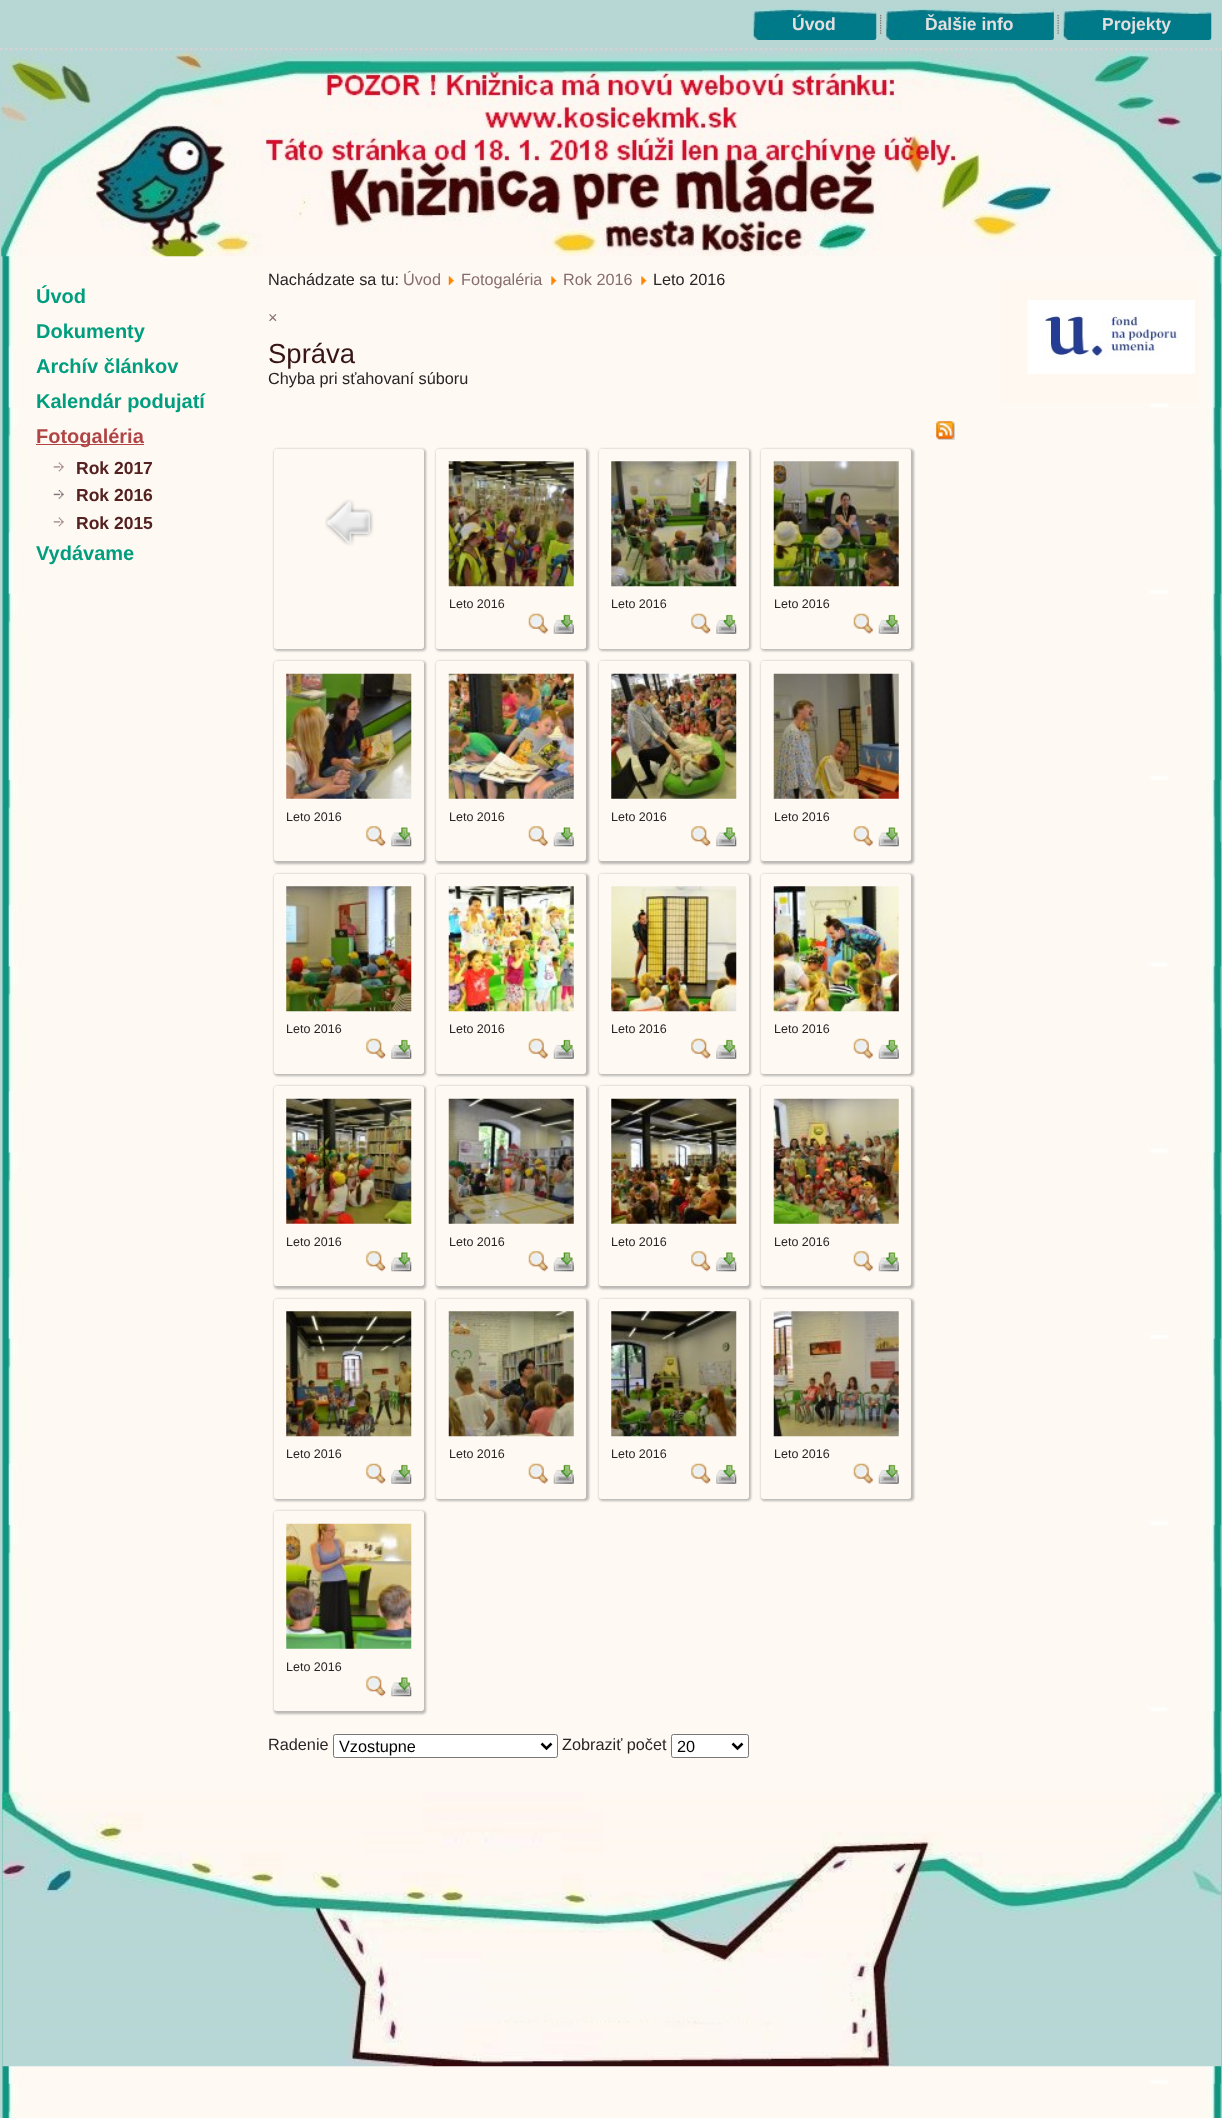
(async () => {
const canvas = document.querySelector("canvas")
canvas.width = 1222
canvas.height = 2118
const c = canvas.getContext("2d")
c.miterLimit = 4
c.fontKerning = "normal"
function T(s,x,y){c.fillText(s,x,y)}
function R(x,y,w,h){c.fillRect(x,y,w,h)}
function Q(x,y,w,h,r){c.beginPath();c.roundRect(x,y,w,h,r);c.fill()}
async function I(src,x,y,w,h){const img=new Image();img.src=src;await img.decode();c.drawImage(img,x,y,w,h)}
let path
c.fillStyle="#b6d7d3"
R(0,0,1222,2118)
await I("1.png",2,50,1220,2068)
await I("7.png",1,50,1221,207)
path = new Path2D("M0 49h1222.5")
c.strokeStyle="#d6d1d3"
c.lineWidth=2.5
c.setLineDash([2.5,2.5])
c.stroke(path)
await I("2.png",752,8,125,32)
c.font="bold 17.5px Liberation Sans"
c.fillStyle="#e2dfe0"
T("Úvod",792,30)
await I("3.png",880,14,2,20)
c.fillStyle="#ab9698"
Q(885,8,169,32,2.5)
await I("4.png",885,7,169,33)
c.fillStyle="#e2dfe0"
T("Ďalšie info",925,30)
await I("5.png",1057,14,2,20)
await I("6.png",1062,8,150,32)
T("Projekty",1102,30)
c.font="bold 20px Liberation Sans"
c.fillStyle="#009e7e"
T("Úvod",36,303)
T("Dokumenty",36,338)
T("Archív článkov",36,373)
T("Kalendár podujatí",36,408)
c.fillStyle="#b04545"
R(36,444,108,1)
T("Fotogaléria",36,443)
await I("8.png",53,462,11,10)
c.font="bold 17.5px Liberation Sans"
c.fillStyle="#542121"
T("Rok 2017",76,474)
await I("9.png",53,490,11,9)
T("Rok 2016",76,501)
await I("8.png",53,517,11,10)
T("Rok 2015",76,529)
c.font="bold 20px Liberation Sans"
c.fillStyle="#009e7e"
T("Vydávame",36,560)
c.font="16.25px Liberation Sans"
c.fillStyle="#292425"
T("Nachádzate sa tu:",268,285)
c.fillStyle="#886d6f"
T("Úvod",403,285)
await I("10.png",448,276,6,9)
T("Fotogaléria",461,285)
await I("11.png",551,276,6,9)
T("Rok 2016",563,285)
await I("11.png",641,276,6,9)
c.fillStyle="#292425"
T("Leto 2016",653,285)
c.fillStyle="#886d6f"
T("×",268,323)
c.font="27.5px Liberation Sans"
c.fillStyle="#371515"
T("Správa",268,363)
c.font="16.25px Liberation Sans"
c.fillStyle="#292425"
T("Chyba pri sťahovaní súboru",268,384)
await I("12.png",936,421,19,19)
c.save()
path = new Path2D("M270 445h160v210h-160zm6.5 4h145c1.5 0 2.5 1 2.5 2.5v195c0 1.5-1 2.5-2.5 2.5h-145c-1.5 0-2.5-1-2.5-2.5v-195c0-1.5 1-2.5 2.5-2.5z")
c.clip(path,"evenodd")
c.fillStyle="#78787880"
c.filter="blur(1px)"
c.beginPath()
c.roundRect(274,449,152,202,4)
c.fill()
c.filter="none"
c.restore()
await I("13.png",325,499,49,47)
c.save()
path = new Path2D("M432 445h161v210h-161zm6.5 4h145c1.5 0 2.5 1 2.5 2.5v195c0 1.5-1 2.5-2.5 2.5h-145c-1.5 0-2.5-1-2.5-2.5v-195c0-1.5 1-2.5 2.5-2.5z")
c.clip(path,"evenodd")
c.fillStyle="#78787880"
c.filter="blur(1px)"
c.beginPath()
c.roundRect(436,449,153,202,4)
c.fill()
c.filter="none"
c.restore()
await I("14.png",448,461,126,126)
c.font="12.5px Liberation Sans"
T("Leto 2016",449,608)
await I("15.png",528,613,21,21)
await I("16.png",553,614,21,20)
c.save()
path = new Path2D("M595 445h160v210h-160zm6.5 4h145c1.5 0 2.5 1 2.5 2.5v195c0 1.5-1 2.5-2.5 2.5h-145c-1.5 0-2.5-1-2.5-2.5v-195c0-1.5 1-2.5 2.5-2.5z")
c.clip(path,"evenodd")
c.fillStyle="#78787880"
c.filter="blur(1px)"
c.beginPath()
c.roundRect(599,449,152,202,4)
c.fill()
c.filter="none"
c.restore()
await I("17.png",611,461,126,126)
T("Leto 2016",611,608)
await I("18.png",691,613,20,21)
await I("19.png",716,614,21,20)
c.save()
path = new Path2D("M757 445h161v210h-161zm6.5 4h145c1.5 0 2.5 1 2.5 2.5v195c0 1.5-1 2.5-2.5 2.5h-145c-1.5 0-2.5-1-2.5-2.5v-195c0-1.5 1-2.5 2.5-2.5z")
c.clip(path,"evenodd")
c.fillStyle="#78787880"
c.filter="blur(1px)"
c.beginPath()
c.roundRect(761,449,153,202,4)
c.fill()
c.filter="none"
c.restore()
await I("20.png",773,461,126,126)
T("Leto 2016",774,608)
await I("21.png",853,613,21,21)
await I("16.png",878,614,21,20)
c.save()
path = new Path2D("M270 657h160v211h-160zm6.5 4h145c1.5 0 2.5 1 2.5 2.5v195c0 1.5-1 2.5-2.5 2.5h-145c-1.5 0-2.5-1-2.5-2.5v-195c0-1.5 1-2.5 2.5-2.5z")
c.clip(path,"evenodd")
c.fillStyle="#78787880"
c.filter="blur(1px)"
c.beginPath()
c.roundRect(274,661,152,203,4)
c.fill()
c.filter="none"
c.restore()
await I("22.png",286,673,126,126)
T("Leto 2016",286,821)
await I("23.png",366,826,20,21)
await I("24.png",391,827,21,20)
c.save()
path = new Path2D("M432 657h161v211h-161zm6.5 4h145c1.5 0 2.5 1 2.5 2.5v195c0 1.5-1 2.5-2.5 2.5h-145c-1.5 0-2.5-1-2.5-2.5v-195c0-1.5 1-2.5 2.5-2.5z")
c.clip(path,"evenodd")
c.fillStyle="#78787880"
c.filter="blur(1px)"
c.beginPath()
c.roundRect(436,661,153,203,4)
c.fill()
c.filter="none"
c.restore()
await I("25.png",448,673,126,126)
T("Leto 2016",449,821)
await I("26.png",528,826,21,21)
await I("27.png",553,827,21,20)
c.save()
path = new Path2D("M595 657h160v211h-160zm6.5 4h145c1.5 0 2.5 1 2.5 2.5v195c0 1.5-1 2.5-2.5 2.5h-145c-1.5 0-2.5-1-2.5-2.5v-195c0-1.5 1-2.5 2.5-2.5z")
c.clip(path,"evenodd")
c.fillStyle="#78787880"
c.filter="blur(1px)"
c.beginPath()
c.roundRect(599,661,152,203,4)
c.fill()
c.filter="none"
c.restore()
await I("28.png",611,673,126,126)
T("Leto 2016",611,821)
await I("23.png",691,826,20,21)
await I("24.png",716,827,21,20)
c.save()
path = new Path2D("M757 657h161v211h-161zm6.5 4h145c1.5 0 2.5 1 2.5 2.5v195c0 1.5-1 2.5-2.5 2.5h-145c-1.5 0-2.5-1-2.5-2.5v-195c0-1.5 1-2.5 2.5-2.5z")
c.clip(path,"evenodd")
c.fillStyle="#78787880"
c.filter="blur(1px)"
c.beginPath()
c.roundRect(761,661,153,203,4)
c.fill()
c.filter="none"
c.restore()
await I("29.png",773,673,126,126)
T("Leto 2016",774,821)
await I("30.png",853,826,21,21)
await I("27.png",878,827,21,20)
c.save()
path = new Path2D("M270 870h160v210h-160zm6.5 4h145c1.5 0 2.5 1 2.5 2.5v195c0 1.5-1 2.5-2.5 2.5h-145c-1.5 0-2.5-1-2.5-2.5v-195c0-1.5 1-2.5 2.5-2.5z")
c.clip(path,"evenodd")
c.fillStyle="#78787880"
c.filter="blur(1px)"
c.beginPath()
c.roundRect(274,874,152,202,4)
c.fill()
c.filter="none"
c.restore()
await I("31.png",286,886,126,126)
T("Leto 2016",286,1033)
await I("18.png",366,1038,20,21)
await I("19.png",391,1039,21,20)
c.save()
path = new Path2D("M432 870h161v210h-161zm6.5 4h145c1.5 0 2.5 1 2.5 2.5v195c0 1.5-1 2.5-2.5 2.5h-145c-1.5 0-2.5-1-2.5-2.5v-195c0-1.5 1-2.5 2.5-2.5z")
c.clip(path,"evenodd")
c.fillStyle="#78787880"
c.filter="blur(1px)"
c.beginPath()
c.roundRect(436,874,153,202,4)
c.fill()
c.filter="none"
c.restore()
await I("32.png",448,886,126,126)
T("Leto 2016",449,1033)
await I("15.png",528,1038,21,21)
await I("16.png",553,1039,21,20)
c.save()
path = new Path2D("M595 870h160v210h-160zm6.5 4h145c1.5 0 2.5 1 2.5 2.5v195c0 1.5-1 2.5-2.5 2.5h-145c-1.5 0-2.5-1-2.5-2.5v-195c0-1.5 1-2.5 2.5-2.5z")
c.clip(path,"evenodd")
c.fillStyle="#78787880"
c.filter="blur(1px)"
c.beginPath()
c.roundRect(599,874,152,202,4)
c.fill()
c.filter="none"
c.restore()
await I("33.png",611,886,126,126)
T("Leto 2016",611,1033)
await I("18.png",691,1038,20,21)
await I("19.png",716,1039,21,20)
c.save()
path = new Path2D("M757 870h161v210h-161zm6.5 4h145c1.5 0 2.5 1 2.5 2.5v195c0 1.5-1 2.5-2.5 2.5h-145c-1.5 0-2.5-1-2.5-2.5v-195c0-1.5 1-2.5 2.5-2.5z")
c.clip(path,"evenodd")
c.fillStyle="#78787880"
c.filter="blur(1px)"
c.beginPath()
c.roundRect(761,874,153,202,4)
c.fill()
c.filter="none"
c.restore()
await I("34.png",773,886,126,126)
T("Leto 2016",774,1033)
await I("21.png",853,1038,21,21)
await I("16.png",878,1039,21,20)
c.save()
path = new Path2D("M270 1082h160v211h-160zm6.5 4h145c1.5 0 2.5 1 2.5 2.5v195c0 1.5-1 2.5-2.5 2.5h-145c-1.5 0-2.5-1-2.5-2.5v-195c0-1.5 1-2.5 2.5-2.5z")
c.clip(path,"evenodd")
c.fillStyle="#78787880"
c.filter="blur(1px)"
c.beginPath()
c.roundRect(274,1086,152,203,4)
c.fill()
c.filter="none"
c.restore()
await I("35.png",286,1098,126,126)
T("Leto 2016",286,1246)
await I("23.png",366,1251,20,21)
await I("24.png",391,1252,21,20)
c.save()
path = new Path2D("M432 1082h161v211h-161zm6.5 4h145c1.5 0 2.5 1 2.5 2.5v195c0 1.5-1 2.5-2.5 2.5h-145c-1.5 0-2.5-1-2.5-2.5v-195c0-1.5 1-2.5 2.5-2.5z")
c.clip(path,"evenodd")
c.fillStyle="#78787880"
c.filter="blur(1px)"
c.beginPath()
c.roundRect(436,1086,153,203,4)
c.fill()
c.filter="none"
c.restore()
await I("36.png",448,1098,126,126)
T("Leto 2016",449,1246)
await I("26.png",528,1251,21,21)
await I("27.png",553,1252,21,20)
c.save()
path = new Path2D("M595 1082h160v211h-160zm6.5 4h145c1.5 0 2.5 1 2.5 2.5v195c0 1.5-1 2.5-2.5 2.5h-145c-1.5 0-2.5-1-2.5-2.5v-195c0-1.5 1-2.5 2.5-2.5z")
c.clip(path,"evenodd")
c.fillStyle="#78787880"
c.filter="blur(1px)"
c.beginPath()
c.roundRect(599,1086,152,203,4)
c.fill()
c.filter="none"
c.restore()
await I("37.png",611,1098,126,126)
T("Leto 2016",611,1246)
await I("23.png",691,1251,20,21)
await I("24.png",716,1252,21,20)
c.save()
path = new Path2D("M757 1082h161v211h-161zm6.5 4h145c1.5 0 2.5 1 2.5 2.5v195c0 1.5-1 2.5-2.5 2.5h-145c-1.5 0-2.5-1-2.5-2.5v-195c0-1.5 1-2.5 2.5-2.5z")
c.clip(path,"evenodd")
c.fillStyle="#78787880"
c.filter="blur(1px)"
c.beginPath()
c.roundRect(761,1086,153,203,4)
c.fill()
c.filter="none"
c.restore()
await I("38.png",773,1098,126,126)
T("Leto 2016",774,1246)
await I("30.png",853,1251,21,21)
await I("27.png",878,1252,21,20)
c.save()
path = new Path2D("M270 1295h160v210h-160zm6.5 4h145c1.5 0 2.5 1 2.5 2.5v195c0 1.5-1 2.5-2.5 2.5h-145c-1.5 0-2.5-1-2.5-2.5v-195c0-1.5 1-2.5 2.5-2.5z")
c.clip(path,"evenodd")
c.fillStyle="#78787880"
c.filter="blur(1px)"
c.beginPath()
c.roundRect(274,1299,152,202,4)
c.fill()
c.filter="none"
c.restore()
await I("39.png",286,1311,126,126)
T("Leto 2016",286,1458)
await I("18.png",366,1463,20,21)
await I("19.png",391,1464,21,20)
c.save()
path = new Path2D("M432 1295h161v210h-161zm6.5 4h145c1.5 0 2.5 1 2.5 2.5v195c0 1.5-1 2.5-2.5 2.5h-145c-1.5 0-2.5-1-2.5-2.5v-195c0-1.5 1-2.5 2.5-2.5z")
c.clip(path,"evenodd")
c.fillStyle="#78787880"
c.filter="blur(1px)"
c.beginPath()
c.roundRect(436,1299,153,202,4)
c.fill()
c.filter="none"
c.restore()
await I("40.png",448,1311,126,126)
T("Leto 2016",449,1458)
await I("15.png",528,1463,21,21)
await I("16.png",553,1464,21,20)
c.save()
path = new Path2D("M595 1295h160v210h-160zm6.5 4h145c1.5 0 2.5 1 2.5 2.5v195c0 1.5-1 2.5-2.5 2.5h-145c-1.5 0-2.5-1-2.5-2.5v-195c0-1.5 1-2.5 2.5-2.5z")
c.clip(path,"evenodd")
c.fillStyle="#78787880"
c.filter="blur(1px)"
c.beginPath()
c.roundRect(599,1299,152,202,4)
c.fill()
c.filter="none"
c.restore()
await I("41.png",611,1311,126,126)
T("Leto 2016",611,1458)
await I("18.png",691,1463,20,21)
await I("19.png",716,1464,21,20)
c.save()
path = new Path2D("M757 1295h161v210h-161zm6.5 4h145c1.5 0 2.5 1 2.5 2.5v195c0 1.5-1 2.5-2.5 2.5h-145c-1.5 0-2.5-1-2.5-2.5v-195c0-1.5 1-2.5 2.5-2.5z")
c.clip(path,"evenodd")
c.fillStyle="#78787880"
c.filter="blur(1px)"
c.beginPath()
c.roundRect(761,1299,153,202,4)
c.fill()
c.filter="none"
c.restore()
await I("42.png",773,1311,126,126)
T("Leto 2016",774,1458)
await I("21.png",853,1463,21,21)
await I("16.png",878,1464,21,20)
c.save()
path = new Path2D("M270 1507h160v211h-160zm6.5 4h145c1.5 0 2.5 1 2.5 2.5v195c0 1.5-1 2.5-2.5 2.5h-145c-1.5 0-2.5-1-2.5-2.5v-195c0-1.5 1-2.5 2.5-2.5z")
c.clip(path,"evenodd")
c.fillStyle="#78787880"
c.filter="blur(1px)"
c.beginPath()
c.roundRect(274,1511,152,203,4)
c.fill()
c.filter="none"
c.restore()
await I("43.png",286,1523,126,126)
T("Leto 2016",286,1671)
await I("23.png",366,1676,20,21)
await I("24.png",391,1677,21,20)
c.font="16.25px Liberation Sans"
T("Radenie",268,1750)
c.fillStyle="#fff"
c.beginPath()
c.roundRect(333.5,1734.5,224,23,2)
c.fill()
c.strokeStyle="#767676"
c.lineWidth=1
c.setLineDash([])
c.stroke()
path = new Path2D("M541.5 1743.5l5 5l5-5")
c.strokeStyle="#000"
c.lineWidth=2.5
c.stroke(path)
c.fillStyle="#000"
T("Vzostupne",339,1752)
c.fillStyle="#292425"
T("Zobraziť počet",562,1750)
c.fillStyle="#fff"
c.beginPath()
c.roundRect(671.5,1734.5,77,23,2)
c.fill()
c.strokeStyle="#767676"
c.lineWidth=1
c.stroke()
path = new Path2D("M732.5 1743.5l5 5l5-5")
c.strokeStyle="#000"
c.lineWidth=2.5
c.stroke(path)
c.fillStyle="#000"
T("20",677,1752)
c.fillStyle="#fef8f1"
c.beginPath()
c.roundRect(1000,279,199,124,[5,5,0,0])
c.fill()
await I("44.png",1027,300,168,74)
await I("45.png",2,1792,1220,275)
})()
